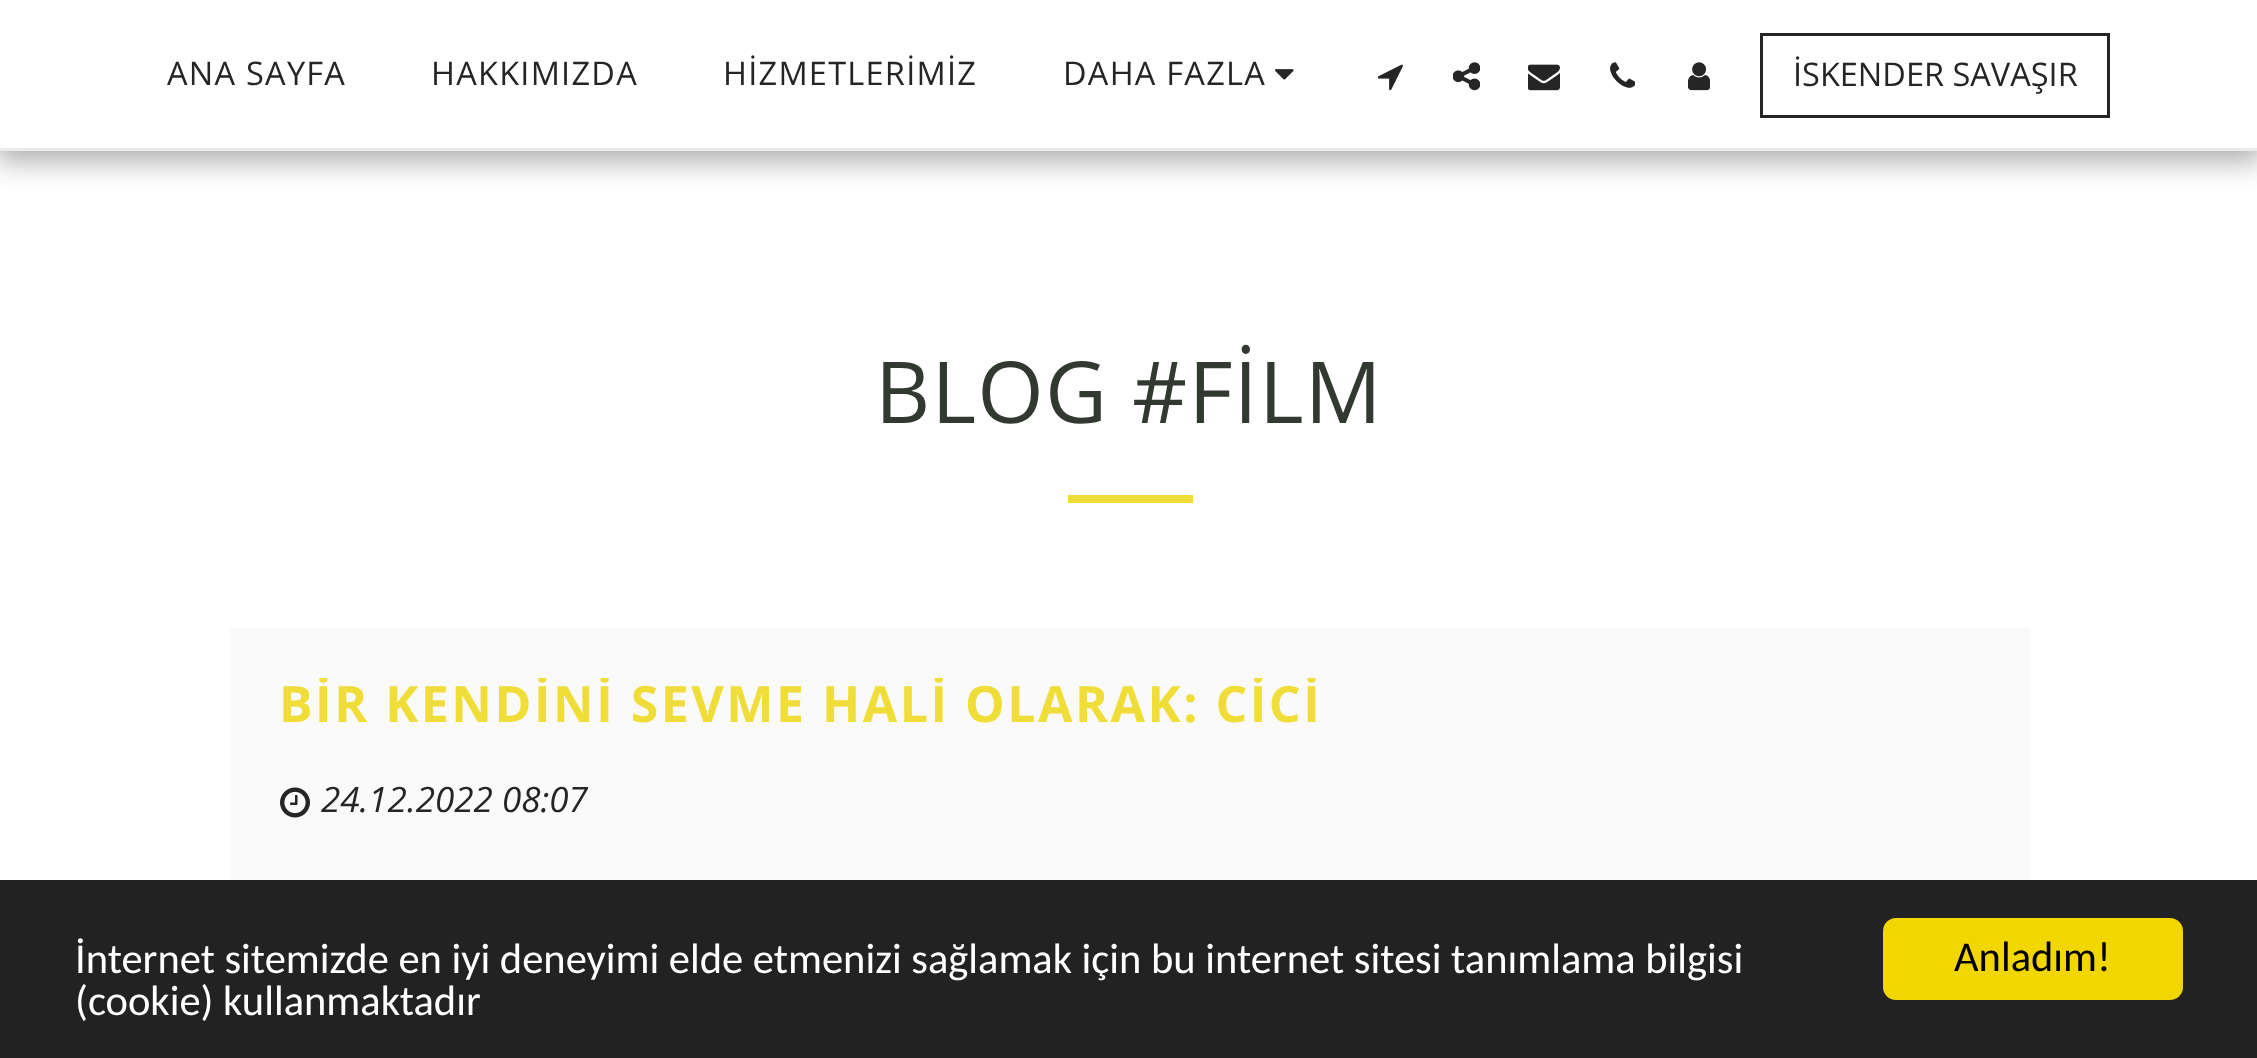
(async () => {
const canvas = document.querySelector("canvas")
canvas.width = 2257
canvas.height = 1058
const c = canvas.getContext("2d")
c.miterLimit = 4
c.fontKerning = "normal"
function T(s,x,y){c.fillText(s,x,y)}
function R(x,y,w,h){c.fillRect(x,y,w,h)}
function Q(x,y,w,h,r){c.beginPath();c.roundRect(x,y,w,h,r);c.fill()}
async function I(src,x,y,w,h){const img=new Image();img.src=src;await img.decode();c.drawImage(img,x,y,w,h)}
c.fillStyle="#fff"
R(0,0,2257,1058)
c.fillStyle="#00000059"
c.filter="blur(15px)"
c.beginPath()
c.rect(-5,0,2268,160)
c.fill()
c.filter="none"
c.fillStyle="#fff"
R(0,0,2257,148)
c.fillStyle="#ebebeb"
R(0,148,2257,3)
c.letterSpacing="1.25px"
c.font="32.5px Open Sans"
c.fillStyle="#252525"
T("ANA SAYFA",167,85)
T("HAKKIMIZDA",431,85)
T("HİZMETLERİMİZ",723,85)
T("DAHA FAZLA",1063,85)
await I("1.png",1275,69,19,11)
await I("2.png",1378,64,25,27)
await I("3.png",1453,62,27,29)
await I("4.png",1528,64,32,27)
await I("5.png",1610,62,25,26)
await I("6.png",1688,62,22,29)
c.strokeStyle="#252525"
c.lineWidth=3
c.strokeRect(1761.5,34.5,347,82)
c.letterSpacing="0px"
T("İSKENDER SAVAŞIR",1793,86)
c.letterSpacing="1.25px"
c.font="85.5px Open Sans"
c.fillStyle="#323930"
T("BLOG #FİLM",875,423)
c.fillStyle="#f1dd38"
R(1068,495,125,8)
c.fillStyle="#fafafa"
R(230,628,1800,252)
c.save()
c.beginPath()
c.rect(280,678,1700,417)
c.clip()
c.letterSpacing="2.5px"
c.font="bold 50px Open Sans"
c.fillStyle="#f1dd38"
T("BİR KENDİNİ SEVME HALİ OLARAK: CİCİ",279,722)
c.restore()
await I("7.png",280,787,30,31)
c.letterSpacing="0px"
c.font="italic 35px Open Sans"
c.fillStyle="#252525"
T("24.12.2022 08:07",321,812)
c.fillStyle="#222"
R(0,880,2257,178)
c.font="42.5px Carlito"
c.fillStyle="#fff"
T("İnternet sitemizde en iyi deneyimi elde etmenizi sağlamak için bu internet sitesi tanımlama bilgisi",75,973)
T("(cookie) kullanmaktadır",75,1015)
c.fillStyle="#f1d600"
Q(1883,918,300,82,13)
c.fillStyle="#000"
T("Anladım!",1954,971)
})()
